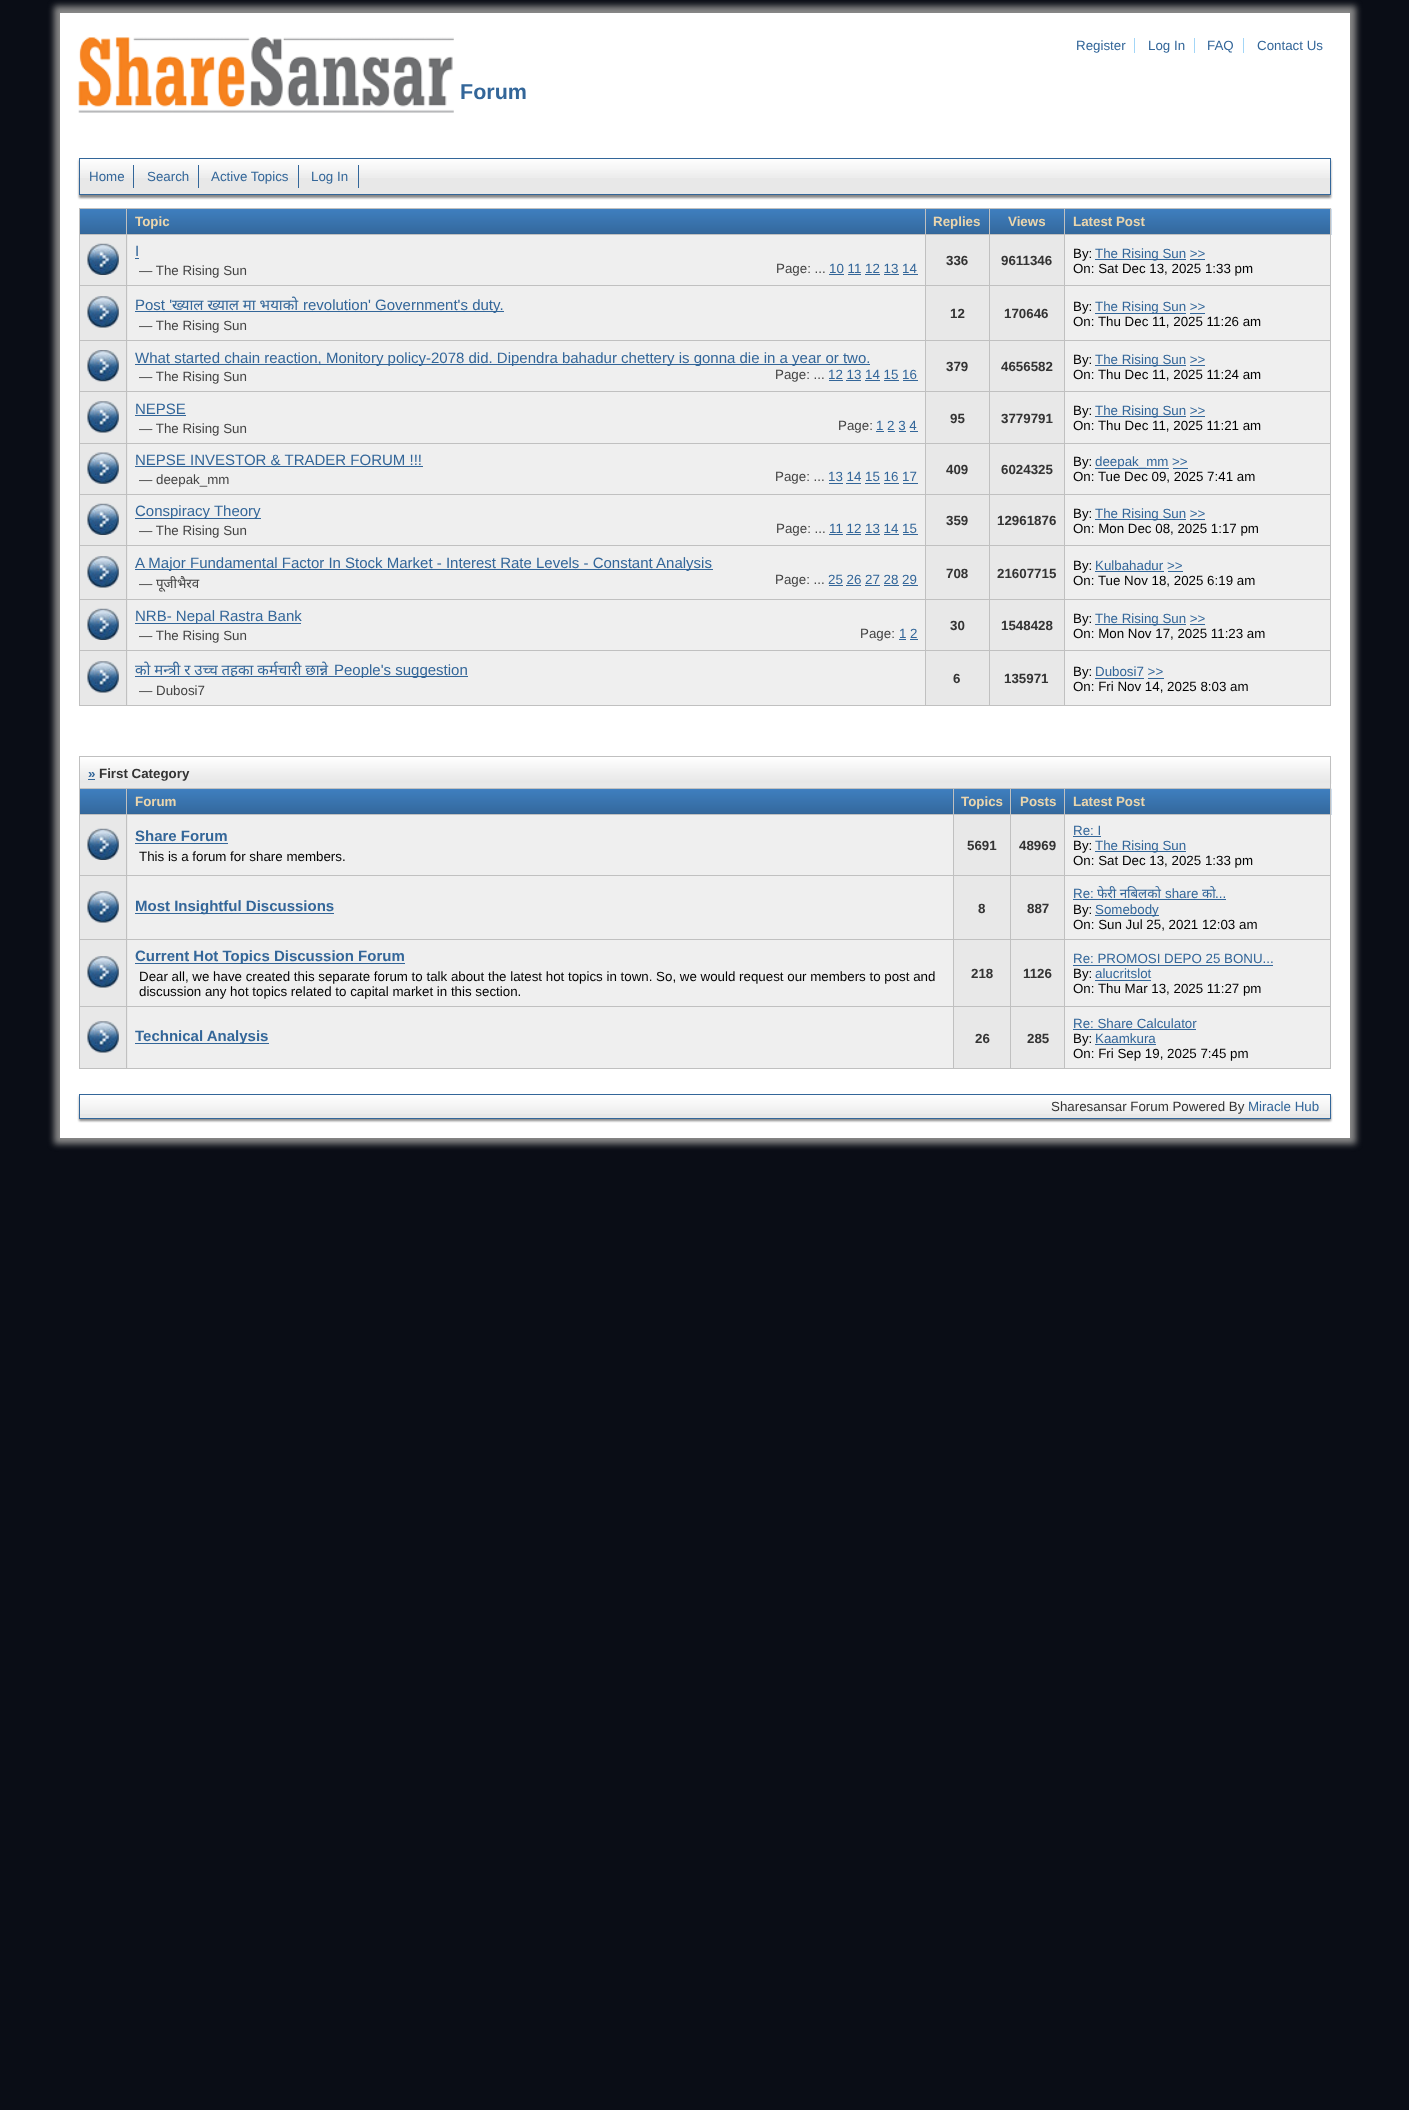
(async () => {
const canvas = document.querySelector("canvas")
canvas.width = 1409
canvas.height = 2110
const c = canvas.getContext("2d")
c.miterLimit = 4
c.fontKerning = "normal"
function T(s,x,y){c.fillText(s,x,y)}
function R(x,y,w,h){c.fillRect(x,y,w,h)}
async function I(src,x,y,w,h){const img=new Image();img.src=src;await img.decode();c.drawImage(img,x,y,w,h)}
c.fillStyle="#0a0d16"
R(0,0,1409,2110)
c.fillStyle="#888"
c.filter="blur(3px)"
c.beginPath()
c.rect(54,6,1302,1138)
c.fill()
c.filter="none"
c.fillStyle="#fff"
R(60,13,1290,1125)
await I("1.png",78,37,376,76)
c.font="13.33px Liberation Sans"
c.fillStyle="#369"
T("Register",1076,50)
c.fillStyle="#a3d6f7"
R(1134,38,1,15)
c.fillStyle="#369"
T("Log In",1148,50)
c.fillStyle="#a3d6f7"
R(1194,38,1,15)
c.fillStyle="#369"
T("FAQ",1207,50)
c.fillStyle="#a3d6f7"
R(1243,38,1,15)
c.fillStyle="#369"
T("Contact Us",1257,50)
c.font="bold 21.5px Liberation Sans"
T("Forum",460,99)
c.fillStyle="#888"
c.filter="blur(1px)"
c.beginPath()
c.rect(79,160,1252,38)
c.fill()
c.filter="none"
c.fillStyle="#e8e8e8"
R(80,178,1250,16)
await I("2.png",78,158,1254,20)
c.strokeStyle="#369"
c.strokeRect(79.5,158.5,1251,36)
c.font="13.33px Liberation Sans"
c.fillStyle="#369"
T("Home",89,181)
R(133,165,1,23)
T("Search",147,181)
R(198,165,1,23)
T("Active Topics",211,181)
R(298,165,1,23)
T("Log In",311,181)
R(358,165,1,23)
await I("7.png",1065,208,267,27)
c.fillStyle="#c0c0c0"
R(1330,208,1,498)
R(79,705,1252,1)
R(79,208,1,498)
c.fillStyle="#369"
R(80,209,48,25)
await I("3.png",80,209,48,24)
c.fillStyle="#c0c0c0"
R(1064,208,267,1)
R(1064,234,267,1)
R(1064,285,267,1)
R(1064,340,267,1)
c.fillStyle="#e8e8e8"
R(990,341,74,102)
c.fillStyle="#efefef"
R(1065,341,265,102)
c.fillStyle="#c0c0c0"
R(1064,391,267,1)
R(1064,443,267,1)
R(1064,494,267,1)
R(1064,545,267,1)
R(1064,599,267,1)
R(1064,650,267,1)
R(1064,650,1,56)
R(989,650,76,1)
R(1064,599,1,52)
R(989,599,76,1)
R(1064,545,1,55)
R(989,545,76,1)
R(1064,494,1,52)
R(989,494,76,1)
R(1064,443,1,52)
R(989,443,76,1)
R(1064,391,1,53)
R(989,391,76,1)
R(1064,340,1,53)
R(989,340,76,1)
R(1064,285,1,56)
R(989,285,76,1)
R(1064,234,1,52)
R(989,234,76,1)
R(1064,208,1,27)
R(989,208,76,1)
c.fillStyle="#369"
R(926,209,63,25)
await I("5.png",926,209,63,24)
await I("6.png",988,209,76,24)
c.fillStyle="#e8e8e8"
R(926,341,63,102)
c.fillStyle="#c0c0c0"
R(989,650,1,56)
R(925,650,65,1)
R(989,599,1,52)
R(925,599,65,1)
R(989,545,1,55)
R(925,545,65,1)
R(989,494,1,52)
R(925,494,65,1)
R(989,443,1,52)
R(925,443,65,1)
R(989,391,1,53)
R(925,391,65,1)
R(989,340,1,53)
R(925,340,65,1)
R(989,285,1,56)
R(925,285,65,1)
R(989,234,1,52)
R(925,234,65,1)
R(989,208,1,27)
R(925,208,65,1)
c.fillStyle="#e8e8e8"
R(80,341,48,102)
c.fillStyle="#efefef"
R(128,341,797,102)
c.fillStyle="#c0c0c0"
R(925,650,1,56)
R(126,650,800,1)
R(925,599,1,52)
R(126,599,800,1)
R(925,545,1,55)
R(126,545,800,1)
R(925,494,1,52)
R(126,494,800,1)
R(925,443,1,52)
R(126,443,800,1)
R(925,391,1,53)
R(126,391,800,1)
R(925,340,1,53)
R(126,340,800,1)
R(925,285,1,56)
R(126,285,800,1)
R(925,234,1,52)
R(126,234,800,1)
R(925,208,1,27)
R(126,208,800,1)
c.fillStyle="#e8e8e8"
R(80,235,48,50)
R(80,286,48,54)
R(80,444,48,50)
R(80,495,48,50)
R(80,546,48,53)
R(80,600,48,50)
R(80,651,48,54)
c.fillStyle="#c0c0c0"
R(126,650,1,56)
R(79,650,49,1)
R(126,599,1,52)
R(79,599,49,1)
R(126,545,1,55)
R(79,545,49,1)
R(126,494,1,52)
R(79,494,49,1)
R(126,443,1,52)
R(79,443,49,1)
R(126,391,1,53)
R(79,391,49,1)
R(126,340,1,53)
R(79,340,49,1)
R(126,285,1,56)
R(79,285,49,1)
R(126,234,1,52)
R(79,234,49,1)
R(126,208,1,27)
R(79,208,49,1)
c.fillStyle="#369"
R(128,233,797,1)
await I("4.png",127,209,798,24)
c.font="bold 13.33px Liberation Sans"
c.fillStyle="#ebd6ad"
T("Topic",135,226)
T("Replies",933,226)
c.fillStyle="#369"
R(990,233,74,1)
c.fillStyle="#ebd6ad"
T("Views",1008,226)
T("Latest Post",1073,226)
await I("8.png",87,243,32,32)
c.fillStyle="#efefef"
R(128,235,797,50)
c.font="15px Liberation Sans"
c.fillStyle="#369"
T("I",135,256)
R(135,258,4,1)
c.font="13.33px Liberation Sans"
c.fillStyle="#444"
T("— The Rising Sun",139,275)
T("Page: ...",776,273)
c.fillStyle="#369"
T("10 11 12 13 14",829,273)
R(829,274,15,1)
R(848,274,13,1)
R(865,274,15,1)
R(884,274,15,1)
R(903,274,15,1)
c.fillStyle="#e8e8e8"
R(926,235,63,50)
c.font="bold 13.33px Liberation Sans"
c.fillStyle="#333"
T("336",946,265)
c.fillStyle="#e8e8e8"
R(990,235,74,50)
c.fillStyle="#333"
T("9611346",1001,265)
c.fillStyle="#efefef"
R(1065,235,265,50)
c.font="13.33px Liberation Sans"
c.fillStyle="#000"
T("By:",1073,258)
c.fillStyle="#369"
R(1095,259,91,1)
T("The Rising Sun >>",1095,258)
R(1190,259,15,1)
c.fillStyle="#000"
T("On: Sat Dec 13, 2025 1:33 pm",1073,273)
await I("9.png",87,296,32,32)
c.fillStyle="#efefef"
R(128,286,797,54)
c.font="15px Liberation Sans"
c.fillStyle="#369"
T("Post '",135,310)
c.font="15px Noto Sans"
T("ख्याल ख्याल मा भयाको",172,310)
R(135,311,369,1)
c.font="15px Liberation Sans"
T("revolution' Government's duty.",303,310)
c.font="13.33px Liberation Sans"
c.fillStyle="#444"
T("— The Rising Sun",139,330)
c.fillStyle="#e8e8e8"
R(926,286,63,54)
c.font="bold 13.33px Liberation Sans"
c.fillStyle="#333"
T("12",950,318)
c.fillStyle="#e8e8e8"
R(990,286,74,54)
c.fillStyle="#333"
T("170646",1004,318)
c.fillStyle="#efefef"
R(1065,286,265,54)
c.font="13.33px Liberation Sans"
c.fillStyle="#000"
T("By:",1073,311)
c.fillStyle="#369"
R(1095,313,91,1)
T("The Rising Sun >>",1095,311)
R(1190,313,15,1)
c.fillStyle="#000"
T("On: Thu Dec 11, 2025 11:26 am",1073,326)
await I("10.png",87,350,32,32)
c.fillStyle="#369"
R(135,364,735,1)
c.font="15px Liberation Sans"
T("What started chain reaction, Monitory policy-2078 did. Dipendra bahadur chettery is gonna die in a year or two.",135,363)
c.font="13.33px Liberation Sans"
c.fillStyle="#444"
T("— The Rising Sun",139,381)
T("Page: ...",775,379)
c.fillStyle="#369"
T("12 13 14 15 16",828,379)
R(829,380,14,1)
R(846,380,15,1)
R(865,380,15,1)
R(884,380,15,1)
R(903,380,15,1)
c.font="bold 13.33px Liberation Sans"
c.fillStyle="#333"
T("379",946,371)
T("4656582",1001,371)
c.font="13.33px Liberation Sans"
c.fillStyle="#000"
T("By:",1073,364)
c.fillStyle="#369"
R(1095,365,91,1)
T("The Rising Sun >>",1095,364)
R(1190,365,15,1)
c.fillStyle="#000"
T("On: Thu Dec 11, 2025 11:24 am",1073,379)
await I("9.png",87,401,32,32)
c.font="15px Liberation Sans"
c.fillStyle="#369"
T("NEPSE",135,414)
R(135,415,51,1)
c.font="13.33px Liberation Sans"
c.fillStyle="#444"
T("— The Rising Sun",139,433)
T("Page:",838,430)
c.fillStyle="#369"
T("1 2 3 4",876,430)
R(876,431,8,1)
R(888,431,7,1)
R(899,431,7,1)
R(910,431,8,1)
c.font="bold 13.33px Liberation Sans"
c.fillStyle="#333"
T("95",950,423)
T("3779791",1001,423)
c.font="13.33px Liberation Sans"
c.fillStyle="#000"
T("By:",1073,415)
c.fillStyle="#369"
R(1095,416,91,1)
T("The Rising Sun >>",1095,415)
R(1190,416,15,1)
c.fillStyle="#000"
T("On: Thu Dec 11, 2025 11:21 am",1073,430)
await I("11.png",87,452,32,32)
c.fillStyle="#efefef"
R(128,444,797,50)
c.font="15px Liberation Sans"
c.fillStyle="#369"
T("NEPSE INVESTOR & TRADER FORUM !!!",135,465)
R(135,466,288,1)
c.font="13.33px Liberation Sans"
c.fillStyle="#444"
T("— deepak_mm",139,484)
T("Page: ...",775,481)
c.fillStyle="#369"
T("13 14 15 16 17",828,481)
R(829,483,14,1)
R(846,483,15,1)
R(865,483,15,1)
R(884,483,15,1)
R(903,483,15,1)
c.fillStyle="#e8e8e8"
R(926,444,63,50)
c.font="bold 13.33px Liberation Sans"
c.fillStyle="#333"
T("409",946,474)
c.fillStyle="#e8e8e8"
R(990,444,74,50)
c.fillStyle="#333"
T("6024325",1001,474)
c.fillStyle="#efefef"
R(1065,444,265,50)
c.font="13.33px Liberation Sans"
c.fillStyle="#000"
T("By:",1073,466)
c.fillStyle="#369"
R(1095,468,74,1)
T("deepak_mm >>",1095,466)
R(1173,468,15,1)
c.fillStyle="#000"
T("On: Tue Dec 09, 2025 7:41 am",1073,481)
await I("8.png",87,503,32,32)
c.fillStyle="#efefef"
R(128,495,797,50)
c.fillStyle="#369"
R(135,518,126,1)
c.font="15px Liberation Sans"
T("Conspiracy Theory",135,516)
c.font="13.33px Liberation Sans"
c.fillStyle="#444"
T("— The Rising Sun",139,535)
T("Page: ...",776,533)
c.fillStyle="#369"
T("11 12 13 14 15",829,533)
R(829,534,14,1)
R(846,534,15,1)
R(865,534,15,1)
R(884,534,15,1)
R(903,534,15,1)
c.fillStyle="#e8e8e8"
R(926,495,63,50)
c.font="bold 13.33px Liberation Sans"
c.fillStyle="#333"
T("359",946,525)
c.fillStyle="#e8e8e8"
R(990,495,74,50)
c.fillStyle="#333"
T("12961876",997,525)
c.fillStyle="#efefef"
R(1065,495,265,50)
c.font="13.33px Liberation Sans"
c.fillStyle="#000"
T("By:",1073,518)
c.fillStyle="#369"
R(1095,519,91,1)
T("The Rising Sun >>",1095,518)
R(1190,519,15,1)
c.fillStyle="#000"
T("On: Mon Dec 08, 2025 1:17 pm",1073,533)
await I("9.png",87,556,32,32)
c.fillStyle="#efefef"
R(128,546,797,53)
c.fillStyle="#369"
R(135,569,578,1)
c.font="15px Liberation Sans"
T("A Major Fundamental Factor In Stock Market - Interest Rate Levels - Constant Analysis",135,568)
c.font="13.33px Liberation Sans"
c.fillStyle="#444"
T("—",139,588)
c.font="13.33px Noto Sans"
T("पूजीभैरव",156,588)
c.font="13.33px Liberation Sans"
T("Page: ...",775,584)
c.fillStyle="#369"
T("25 26 27 28 29",828,584)
R(829,585,14,1)
R(846,585,15,1)
R(865,585,15,1)
R(884,585,15,1)
R(903,585,15,1)
c.fillStyle="#e8e8e8"
R(926,546,63,53)
c.font="bold 13.33px Liberation Sans"
c.fillStyle="#333"
T("708",946,578)
c.fillStyle="#e8e8e8"
R(990,546,74,53)
c.fillStyle="#333"
T("21607715",997,578)
c.fillStyle="#efefef"
R(1065,546,265,53)
c.font="13.33px Liberation Sans"
c.fillStyle="#000"
T("By:",1073,570)
c.fillStyle="#369"
T("Kulbahadur >>",1095,570)
R(1095,571,69,1)
R(1168,571,15,1)
c.fillStyle="#000"
T("On: Tue Nov 18, 2025 6:19 am",1073,585)
await I("8.png",87,608,32,32)
c.fillStyle="#efefef"
R(128,600,797,50)
c.fillStyle="#369"
R(135,623,166,1)
c.font="15px Liberation Sans"
T("NRB- Nepal Rastra Bank",135,621)
c.font="13.33px Liberation Sans"
c.fillStyle="#444"
T("— The Rising Sun",139,640)
T("Page:",860,638)
c.fillStyle="#369"
T("1 2",899,638)
R(899,639,7,1)
R(910,639,8,1)
c.fillStyle="#e8e8e8"
R(926,600,63,50)
c.font="bold 13.33px Liberation Sans"
c.fillStyle="#333"
T("30",950,630)
c.fillStyle="#e8e8e8"
R(990,600,74,50)
c.fillStyle="#333"
T("1548428",1001,630)
c.fillStyle="#efefef"
R(1065,600,265,50)
c.font="13.33px Liberation Sans"
c.fillStyle="#000"
T("By:",1073,623)
c.fillStyle="#369"
R(1095,624,91,1)
T("The Rising Sun >>",1095,623)
R(1190,624,15,1)
c.fillStyle="#000"
T("On: Mon Nov 17, 2025 11:23 am",1073,638)
await I("9.png",87,661,32,32)
c.fillStyle="#efefef"
R(128,651,797,54)
c.fillStyle="#369"
R(135,676,333,1)
c.font="15px Noto Sans"
T("को मन्त्री र उच्च तहका कर्मचारी छान्ने",135,675)
c.font="15px Liberation Sans"
T("People's suggestion",334,675)
c.font="13.33px Liberation Sans"
c.fillStyle="#444"
T("— Dubosi7",139,695)
c.fillStyle="#e8e8e8"
R(926,651,63,54)
c.font="bold 13.33px Liberation Sans"
c.fillStyle="#333"
T("6",953,683)
c.fillStyle="#e8e8e8"
R(990,651,74,54)
c.fillStyle="#333"
T("135971",1004,683)
c.fillStyle="#efefef"
R(1065,651,265,54)
c.font="13.33px Liberation Sans"
c.fillStyle="#000"
T("By:",1073,676)
c.fillStyle="#369"
T("Dubosi7 >>",1095,676)
R(1095,678,49,1)
R(1148,678,16,1)
c.fillStyle="#000"
T("On: Fri Nov 14, 2025 8:03 am",1073,691)
c.fillStyle="#e8e8e8"
R(80,783,1250,5)
await I("12.png",80,758,1252,26)
await I("17.png",1065,788,267,27)
c.fillStyle="#c0c0c0"
R(1330,756,1,313)
R(79,1068,1252,1)
R(79,756,1,313)
R(79,756,1252,1)
c.font="bold 13.33px Liberation Sans"
c.fillStyle="#369"
T("»",88,778)
R(88,779,7,1)
c.fillStyle="#333"
T("First Category",99,778)
c.fillStyle="#369"
R(80,789,873,25)
await I("13.png",80,789,48,24)
c.fillStyle="#c0c0c0"
R(1064,788,267,1)
R(1064,814,267,1)
R(1064,875,267,1)
R(1064,939,267,1)
c.fillStyle="#e8e8e8"
R(1011,940,53,128)
c.fillStyle="#efefef"
R(1065,940,265,128)
c.fillStyle="#c0c0c0"
R(1064,1006,267,1)
R(1064,1006,1,63)
R(1010,1006,55,1)
R(1064,939,1,69)
R(1010,939,55,1)
R(1064,875,1,65)
R(1010,875,55,1)
R(1064,814,1,62)
R(1010,814,55,1)
R(1064,788,1,27)
R(1010,788,55,1)
c.fillStyle="#e8e8e8"
R(954,940,56,128)
c.fillStyle="#c0c0c0"
R(1010,1006,1,63)
R(953,1006,58,1)
R(1010,939,1,69)
R(953,939,58,1)
R(1010,875,1,65)
R(953,875,58,1)
R(1010,814,1,62)
R(953,814,58,1)
R(1010,788,1,27)
R(953,788,58,1)
await I("14.png",127,789,826,24)
await I("15.png",952,789,58,25)
c.fillStyle="#e8e8e8"
R(80,940,48,128)
c.fillStyle="#efefef"
R(128,940,825,128)
c.fillStyle="#c0c0c0"
R(953,1006,1,63)
R(126,1006,828,1)
R(953,939,1,69)
R(126,939,828,1)
R(953,875,1,65)
R(126,875,828,1)
R(953,814,1,62)
R(126,814,828,1)
R(953,788,1,27)
R(126,788,828,1)
c.fillStyle="#e8e8e8"
R(80,815,48,60)
R(80,876,48,63)
c.fillStyle="#c0c0c0"
R(126,1006,1,63)
R(79,1006,49,1)
R(126,939,1,69)
R(79,939,49,1)
R(126,875,1,65)
R(79,875,49,1)
R(126,814,1,62)
R(79,814,49,1)
R(126,788,1,27)
R(79,788,49,1)
c.fillStyle="#ebd6ad"
T("Forum",135,806)
T("Topics",961,806)
c.fillStyle="#369"
R(1011,789,53,25)
await I("16.png",1011,789,53,24)
c.fillStyle="#ebd6ad"
T("Posts",1020,806)
T("Latest Post",1073,806)
await I("8.png",87,828,32,32)
c.fillStyle="#efefef"
R(128,815,825,60)
c.font="bold 15px Liberation Sans"
c.fillStyle="#369"
T("Share Forum",135,841)
R(135,843,93,1)
c.font="13.33px Liberation Sans"
c.fillStyle="#000"
T("This is a forum for share members.",139,861)
c.fillStyle="#e8e8e8"
R(954,815,56,60)
c.font="bold 13.33px Liberation Sans"
c.fillStyle="#333"
T("5691",967,850)
c.fillStyle="#e8e8e8"
R(1011,815,53,60)
c.fillStyle="#333"
T("48969",1019,850)
c.fillStyle="#efefef"
R(1065,815,265,60)
c.font="13.33px Liberation Sans"
c.fillStyle="#369"
T("Re: I",1073,835)
R(1073,836,28,1)
c.fillStyle="#000"
T("By:",1073,850)
c.fillStyle="#369"
R(1095,851,91,1)
T("The Rising Sun",1095,850)
c.fillStyle="#000"
T("On: Sat Dec 13, 2025 1:33 pm",1073,865)
await I("9.png",87,891,32,32)
c.fillStyle="#efefef"
R(128,876,825,63)
c.fillStyle="#369"
R(135,913,199,1)
c.font="bold 15px Liberation Sans"
T("Most Insightful Discussions",135,911)
c.fillStyle="#e8e8e8"
R(954,876,56,63)
c.font="bold 13.33px Liberation Sans"
c.fillStyle="#333"
T("8",978,913)
c.fillStyle="#e8e8e8"
R(1011,876,53,63)
c.fillStyle="#333"
T("887",1027,913)
c.fillStyle="#efefef"
R(1065,876,265,63)
c.font="13.33px Liberation Sans"
c.fillStyle="#369"
T("Re:",1073,898)
c.font="13.33px Noto Sans"
T("फेरी नबिलको",1097,898)
c.font="13.33px Liberation Sans"
T("share",1165,898)
c.font="13.33px Noto Sans"
T("को",1202,898)
c.font="13.33px Liberation Sans"
T("...",1215,898)
R(1073,899,153,1)
c.fillStyle="#000"
T("By:",1073,914)
c.fillStyle="#369"
R(1095,915,64,1)
T("Somebody",1095,914)
c.fillStyle="#000"
T("On: Sun Jul 25, 2021 12:03 am",1073,929)
await I("9.png",87,956,32,32)
c.fillStyle="#369"
R(135,963,270,1)
c.font="bold 15px Liberation Sans"
T("Current Hot Topics Discussion Forum",135,961)
c.font="13.33px Liberation Sans"
c.fillStyle="#000"
T("Dear all, we have created this separate forum to talk about the latest hot topics in town. So, we would request our members to post and",139,981)
T("discussion any hot topics related to capital market in this section.",139,996)
c.font="bold 13.33px Liberation Sans"
c.fillStyle="#333"
T("218",971,978)
T("1126",1023,978)
c.font="13.33px Liberation Sans"
c.fillStyle="#369"
T("Re: PROMOSI DEPO 25 BONU...",1073,963)
R(1073,965,200,1)
c.fillStyle="#000"
T("By:",1073,978)
c.fillStyle="#369"
T("alucritslot",1095,978)
R(1095,980,56,1)
c.fillStyle="#000"
T("On: Thu Mar 13, 2025 11:27 pm",1073,993)
await I("18.png",87,1021,32,32)
c.fillStyle="#369"
R(135,1043,134,1)
c.font="bold 15px Liberation Sans"
T("Technical Analysis",135,1041)
c.font="bold 13.33px Liberation Sans"
c.fillStyle="#333"
T("26",975,1043)
T("285",1027,1043)
c.font="13.33px Liberation Sans"
c.fillStyle="#369"
T("Re: Share Calculator",1073,1028)
R(1073,1029,123,1)
c.fillStyle="#000"
T("By:",1073,1043)
c.fillStyle="#369"
T("Kaamkura",1095,1043)
R(1095,1044,61,1)
c.fillStyle="#000"
T("On: Fri Sep 19, 2025 7:45 pm",1073,1058)
c.fillStyle="#888"
c.filter="blur(1px)"
c.beginPath()
c.rect(79,1096,1252,25)
c.fill()
c.filter="none"
c.fillStyle="#e8e8e8"
R(80,1114,1250,4)
await I("19.png",78,1095,1254,19)
c.strokeRect(79.5,1094.5,1251,24)
c.fillStyle="#333"
T("Sharesansar Forum Powered By",1051,1111)
c.fillStyle="#369"
T("Miracle Hub",1248,1111)
})()
